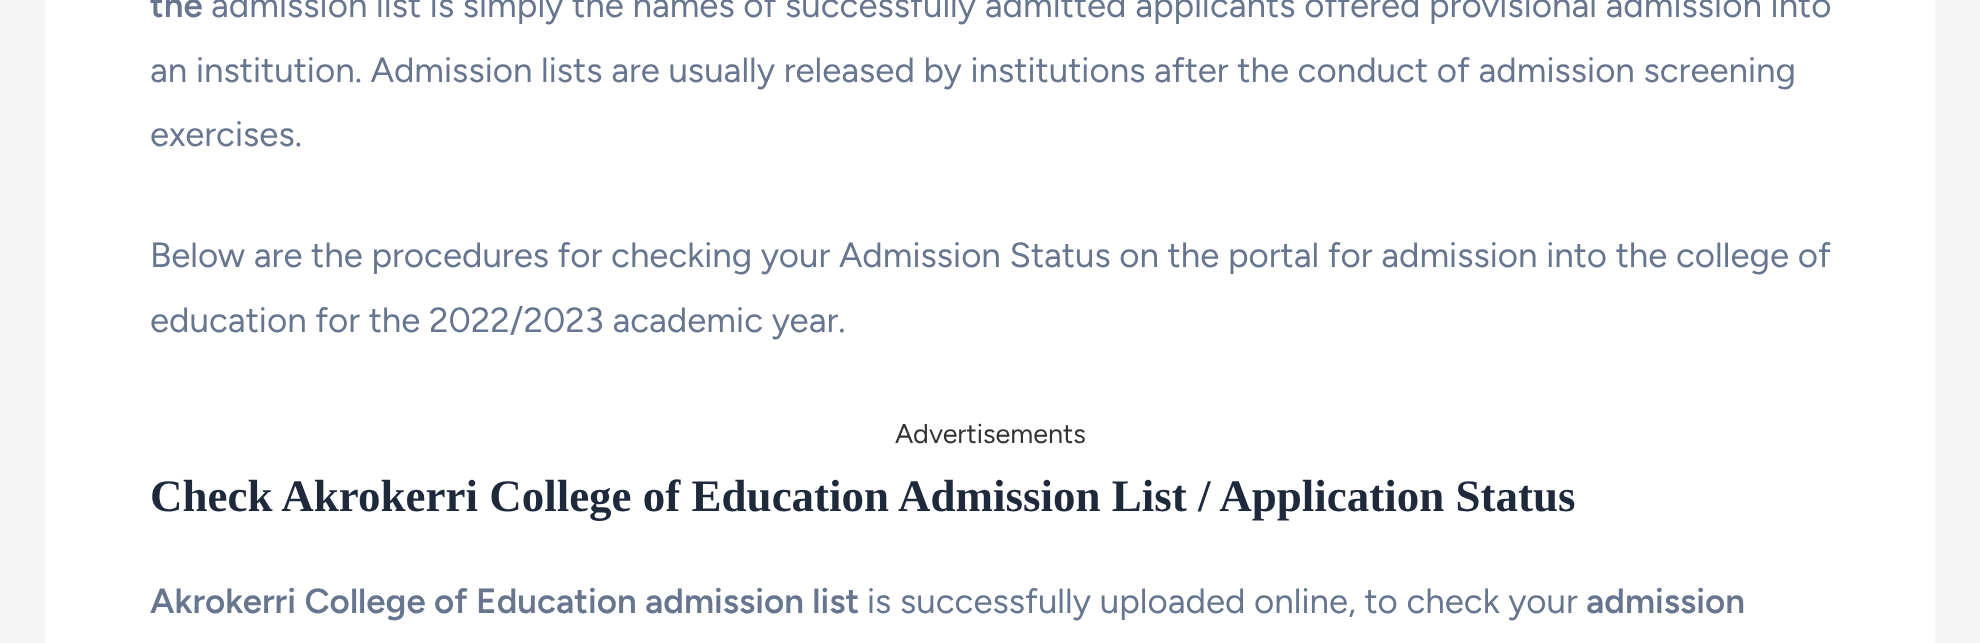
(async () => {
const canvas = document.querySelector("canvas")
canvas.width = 1980
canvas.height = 643
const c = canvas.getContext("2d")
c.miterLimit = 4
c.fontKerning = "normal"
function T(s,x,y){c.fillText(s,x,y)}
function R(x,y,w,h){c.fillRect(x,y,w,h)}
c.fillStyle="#f5f5f5"
R(0,0,1980,643)
c.fillStyle="#fff"
R(45,0,1890,643)
c.font="600 34.9px Figtree"
c.fillStyle="#67768e"
T("the",150,17)
c.font="34.9px Figtree"
T("admission list is simply the names of successfully admitted applicants offered provisional admission into",211,17)
T("an institution. Admission lists are usually released by institutions after the conduct of admission screening",150,82)
T("exercises.",150,146)
T("Below are the procedures for checking your Admission Status on the portal for admission into the college of",150,267)
T("education for the 2022/2023 academic year.",150,332)
c.font="27px Figtree"
c.fillStyle="#333"
T("Advertisements",895,443)
c.font="bold 45px Liberation Serif"
c.fillStyle="#1e293b"
T("Check Akrokerri College of Education Admission List / Application Status",150,511)
c.font="600 34.9px Figtree"
c.fillStyle="#67768e"
T("Akrokerri College of Education admission list",150,613)
c.font="34.9px Figtree"
T("is successfully uploaded online, to check your",867,613)
c.font="600 34.9px Figtree"
T("admission",1586,613)
})()
